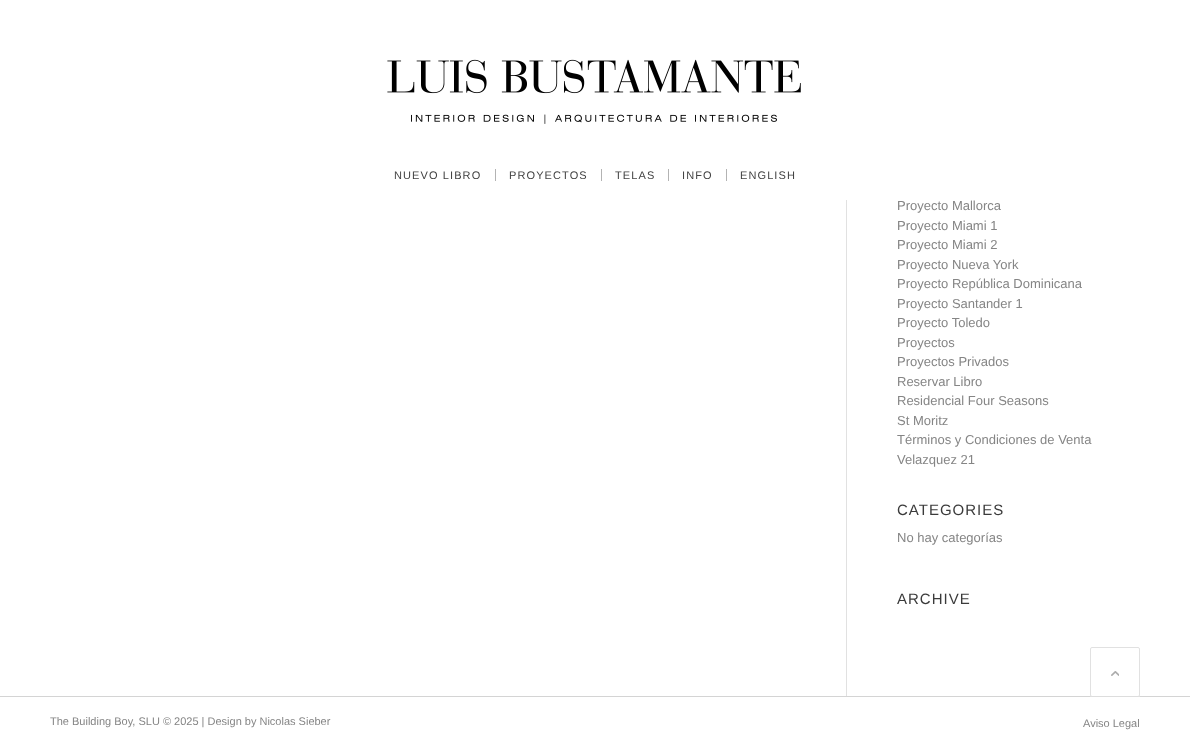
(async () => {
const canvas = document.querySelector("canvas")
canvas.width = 1190
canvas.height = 747
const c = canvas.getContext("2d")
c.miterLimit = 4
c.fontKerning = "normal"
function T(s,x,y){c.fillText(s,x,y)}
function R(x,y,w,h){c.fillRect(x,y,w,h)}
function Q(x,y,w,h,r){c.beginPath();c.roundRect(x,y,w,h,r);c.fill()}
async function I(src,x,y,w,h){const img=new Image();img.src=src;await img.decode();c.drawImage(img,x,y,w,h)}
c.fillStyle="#fff"
R(0,0,1190,747)
await I("1.png",387,59,414,65)
c.letterSpacing="1.1px"
c.font="11px Liberation Sans"
c.fillStyle="#424242"
T("NUEVO LIBRO",394,179)
T("PROYECTOS",509,179)
c.fillStyle="#b3b3b3"
R(495,169,1,12)
c.fillStyle="#424242"
T("TELAS",615,179)
c.fillStyle="#b3b3b3"
R(601,169,1,12)
c.fillStyle="#424242"
T("INFO",682,179)
c.fillStyle="#b3b3b3"
R(668,169,1,12)
c.fillStyle="#424242"
T("ENGLISH",740,179)
c.fillStyle="#b3b3b3"
R(726,169,1,12)
c.fillStyle="#e1e1e1"
R(846,200,1,497)
c.letterSpacing="0px"
c.font="13px Liberation Sans"
c.fillStyle="#858585"
T("Proyecto Mallorca",897,210)
T("Proyecto Miami 1",897,230)
T("Proyecto Miami 2",897,249)
T("Proyecto Nueva York",897,269)
T("Proyecto República Dominicana",897,288)
T("Proyecto Santander 1",897,308)
T("Proyecto Toledo",897,327)
T("Proyectos",897,347)
T("Proyectos Privados",897,366)
T("Reservar Libro",897,386)
T("Residencial Four Seasons",897,405)
T("St Moritz",897,425)
T("Términos y Condiciones de Venta",897,444)
T("Velazquez 21",897,464)
c.letterSpacing="1px"
c.font="15px Liberation Sans"
c.fillStyle="#3b3b3b"
T("CATEGORIES",897,515)
c.letterSpacing="0px"
c.font="13px Liberation Sans"
c.fillStyle="#858585"
T("No hay categorías",897,542)
c.letterSpacing="1px"
c.font="15px Liberation Sans"
c.fillStyle="#3b3b3b"
T("ARCHIVE",897,604)
c.fillStyle="#d4d4d4"
R(0,696,1190,1)
c.letterSpacing="0px"
c.font="11px Liberation Sans"
c.fillStyle="#858585"
T("The Building Boy, SLU © 2025 | Design by Nicolas Sieber",50,725)
T("Aviso Legal",1083,727)
c.fillStyle="#ffffffb3"
Q(1090,647,50,50,2)
c.beginPath()
c.roundRect(1090.5,647.5,49,49,1.5)
c.strokeStyle="#d4d4d4b3"
c.stroke()
await I("2.png",1111,671,8,5)
})()
